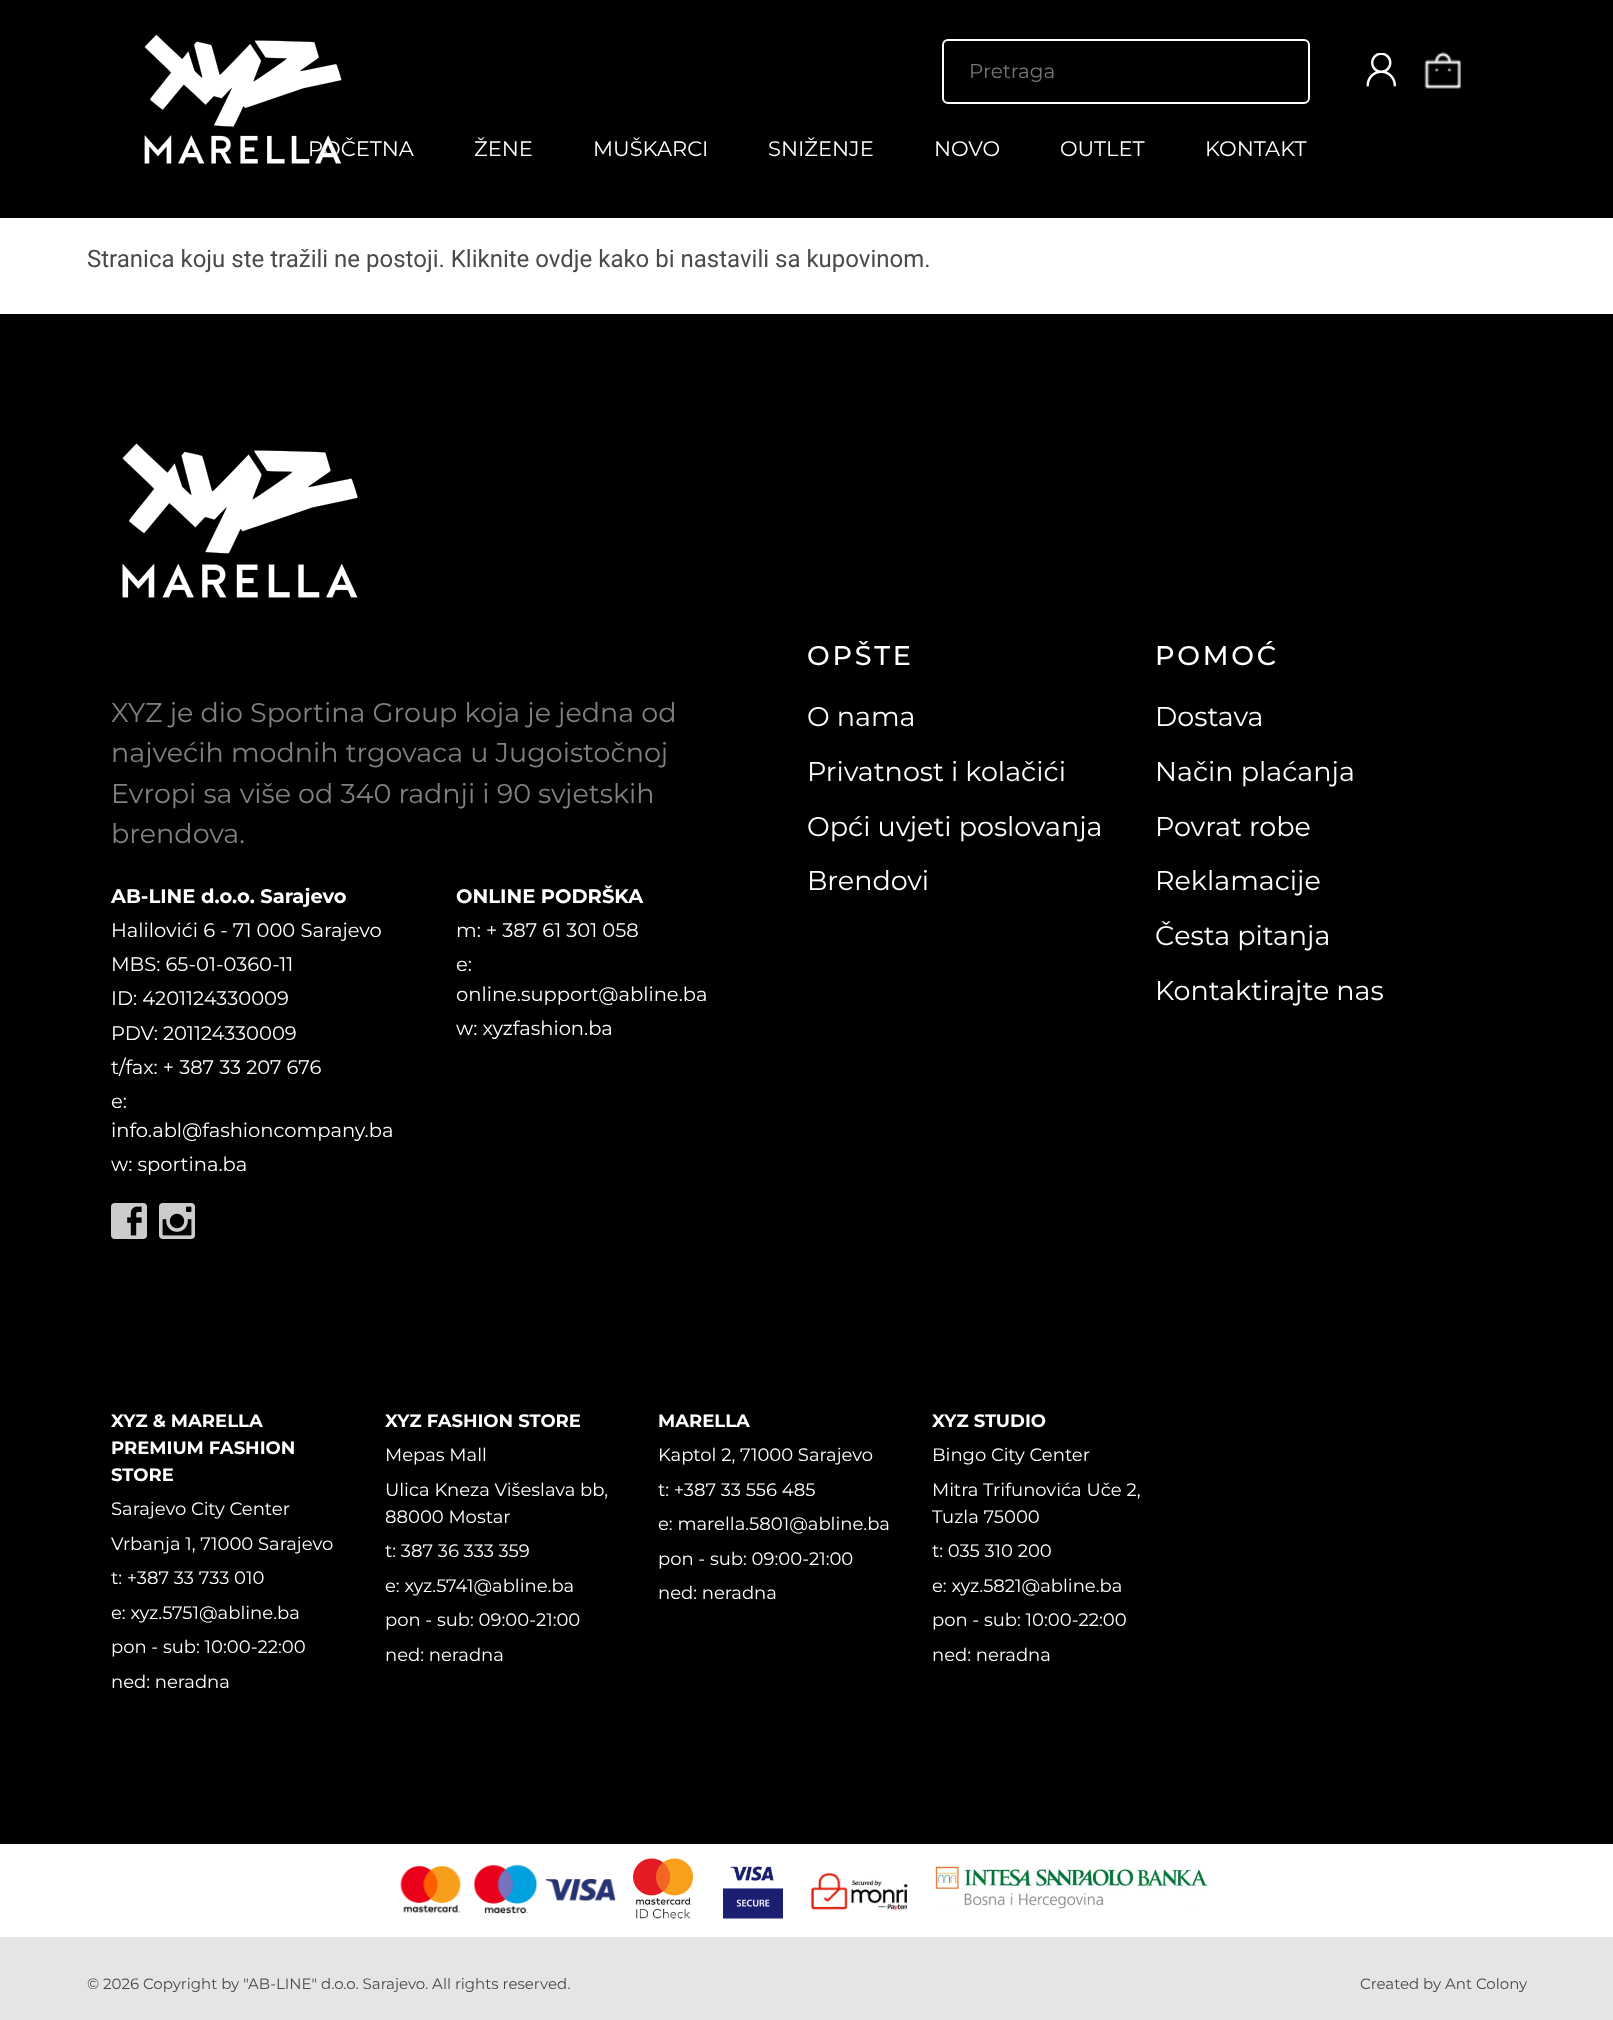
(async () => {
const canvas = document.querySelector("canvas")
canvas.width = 1613
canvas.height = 2020
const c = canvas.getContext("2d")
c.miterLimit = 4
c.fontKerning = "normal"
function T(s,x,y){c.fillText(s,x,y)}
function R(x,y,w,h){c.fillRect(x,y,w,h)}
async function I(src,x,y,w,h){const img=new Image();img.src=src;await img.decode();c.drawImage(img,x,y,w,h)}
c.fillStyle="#fff"
R(0,0,1613,2020)
c.fillStyle="#000"
R(0,0,1613,218)
c.font="21px Montserrat"
c.fillStyle="#fff"
T("POČETNA",308,156)
await I("1.png",144,34,198,130)
c.beginPath()
c.roundRect(943,40,366,63,5)
c.strokeStyle="#fff"
c.lineWidth=2
c.stroke()
c.font="20px Montserrat"
c.fillStyle="#757575"
T("Pretraga",969,78)
await I("2.png",1366,53,30,34)
await I("3.png",1424,52,37,37)
c.font="21px Montserrat"
c.fillStyle="#fff"
T("ŽENE",474,156)
T("MUŠKARCI",593,156)
T("SNIŽENJE",768,156)
T("NOVO",934,156)
T("OUTLET",1060,156)
T("KONTAKT",1205,156)
c.font="24px Roboto"
c.fillStyle="#4a4a4a"
T("Stranica koju ste tražili ne postoji. Kliknite ovdje kako bi nastavili sa kupovinom.",87,267)
c.fillStyle="#000"
R(0,314,1613,1530)
await I("4.png",122,443,236,155)
c.font="27px Montserrat"
c.fillStyle="#808080"
T("XYZ je dio Sportina Group koja je jedna od",111,722)
T("najvećih modnih trgovaca u Jugoistočnoj",111,762)
T("Evropi sa više od 340 radnji i 90 svjetskih",111,803)
T("brendova.",111,843)
c.font="bold 19.5px Montserrat"
c.fillStyle="#fff"
T("AB-LINE d.o.o. Sarajevo",111,903)
c.font="19.5px Montserrat"
T("Halilovići 6 - 71 000 Sarajevo",111,937)
T("MBS: 65-01-0360-11",111,971)
T("ID: 4201124330009",111,1005)
T("PDV: 201124330009",111,1040)
T("t/fax: + 387 33 207 676",111,1074)
T("e:",111,1108)
T("info.abl@fashioncompany.ba",111,1137)
T("w: sportina.ba",111,1171)
c.font="bold 19.5px Montserrat"
T("ONLINE PODRŠKA",456,903)
c.font="19.5px Montserrat"
T("m: + 387 61 301 058",456,937)
T("e:",456,971)
T("online.support@abline.ba",456,1001)
T("w: xyzfashion.ba",456,1035)
await I("5.png",111,1203,36,36)
await I("6.png",159,1203,36,36)
c.letterSpacing="2.75px"
c.font="500 27px Montserrat"
T("OPŠTE",807,665)
c.letterSpacing="0px"
c.font="27px Montserrat"
T("O nama",807,726)
T("Privatnost i kolačići",807,781)
T("Opći uvjeti poslovanja",807,836)
T("Brendovi",807,890)
c.letterSpacing="2.75px"
c.font="500 27px Montserrat"
T("POMOĆ",1155,665)
c.letterSpacing="0px"
c.font="27px Montserrat"
T("Dostava",1155,726)
T("Način plaćanja",1155,781)
T("Povrat robe",1155,836)
T("Reklamacije",1155,890)
T("Česta pitanja",1155,945)
T("Kontaktirajte nas",1155,1000)
c.font="bold 18px Montserrat"
T("XYZ & MARELLA",111,1427)
T("PREMIUM FASHION",111,1454)
T("STORE",111,1481)
c.font="18px Montserrat"
T("Sarajevo City Center",111,1515)
T("Vrbanja 1, 71000 Sarajevo",111,1550)
T("t: +387 33 733 010",111,1584)
T("e: xyz.5751@abline.ba",111,1619)
T("pon - sub: 10:00-22:00",111,1653)
T("ned: neradna",111,1688)
c.font="bold 18px Montserrat"
T("XYZ FASHION STORE",385,1427)
c.font="18px Montserrat"
T("Mepas Mall",385,1461)
T("Ulica Kneza Višeslava bb,",385,1496)
T("88000 Mostar",385,1523)
T("t: 387 36 333 359",385,1557)
T("e: xyz.5741@abline.ba",385,1592)
T("pon - sub: 09:00-21:00",385,1626)
T("ned: neradna",385,1661)
c.font="bold 18px Montserrat"
T("MARELLA",658,1427)
c.font="18px Montserrat"
T("Kaptol 2, 71000 Sarajevo",658,1461)
T("t: +387 33 556 485",658,1496)
T("e: marella.5801@abline.ba",658,1530)
T("pon - sub: 09:00-21:00",658,1565)
T("ned: neradna",658,1599)
c.font="bold 18px Montserrat"
T("XYZ STUDIO",932,1427)
c.font="18px Montserrat"
T("Bingo City Center",932,1461)
T("Mitra Trifunovića Uče 2,",932,1496)
T("Tuzla 75000",932,1523)
T("t: 035 310 200",932,1557)
T("e: xyz.5821@abline.ba",932,1592)
T("pon - sub: 10:00-22:00",932,1626)
T("ned: neradna",932,1661)
await I("7.png",400,1866,61,47)
await I("8.png",473,1864,65,50)
await I("9.png",545,1879,71,22)
await I("10.png",633,1858,60,61)
await I("11.png",723,1866,60,53)
await I("12.png",811,1872,97,39)
await I("13.png",935,1865,274,44)
c.fillStyle="#e5e5e5"
R(0,1937,1613,83)
c.font="15px Montserrat"
c.fillStyle="#4a4a4a"
T("© 2026 Copyright by \"AB-LINE\" d.o.o. Sarajevo. All rights reserved.",87,1989)
T("Created by Ant Colony",1360,1989)
})()
